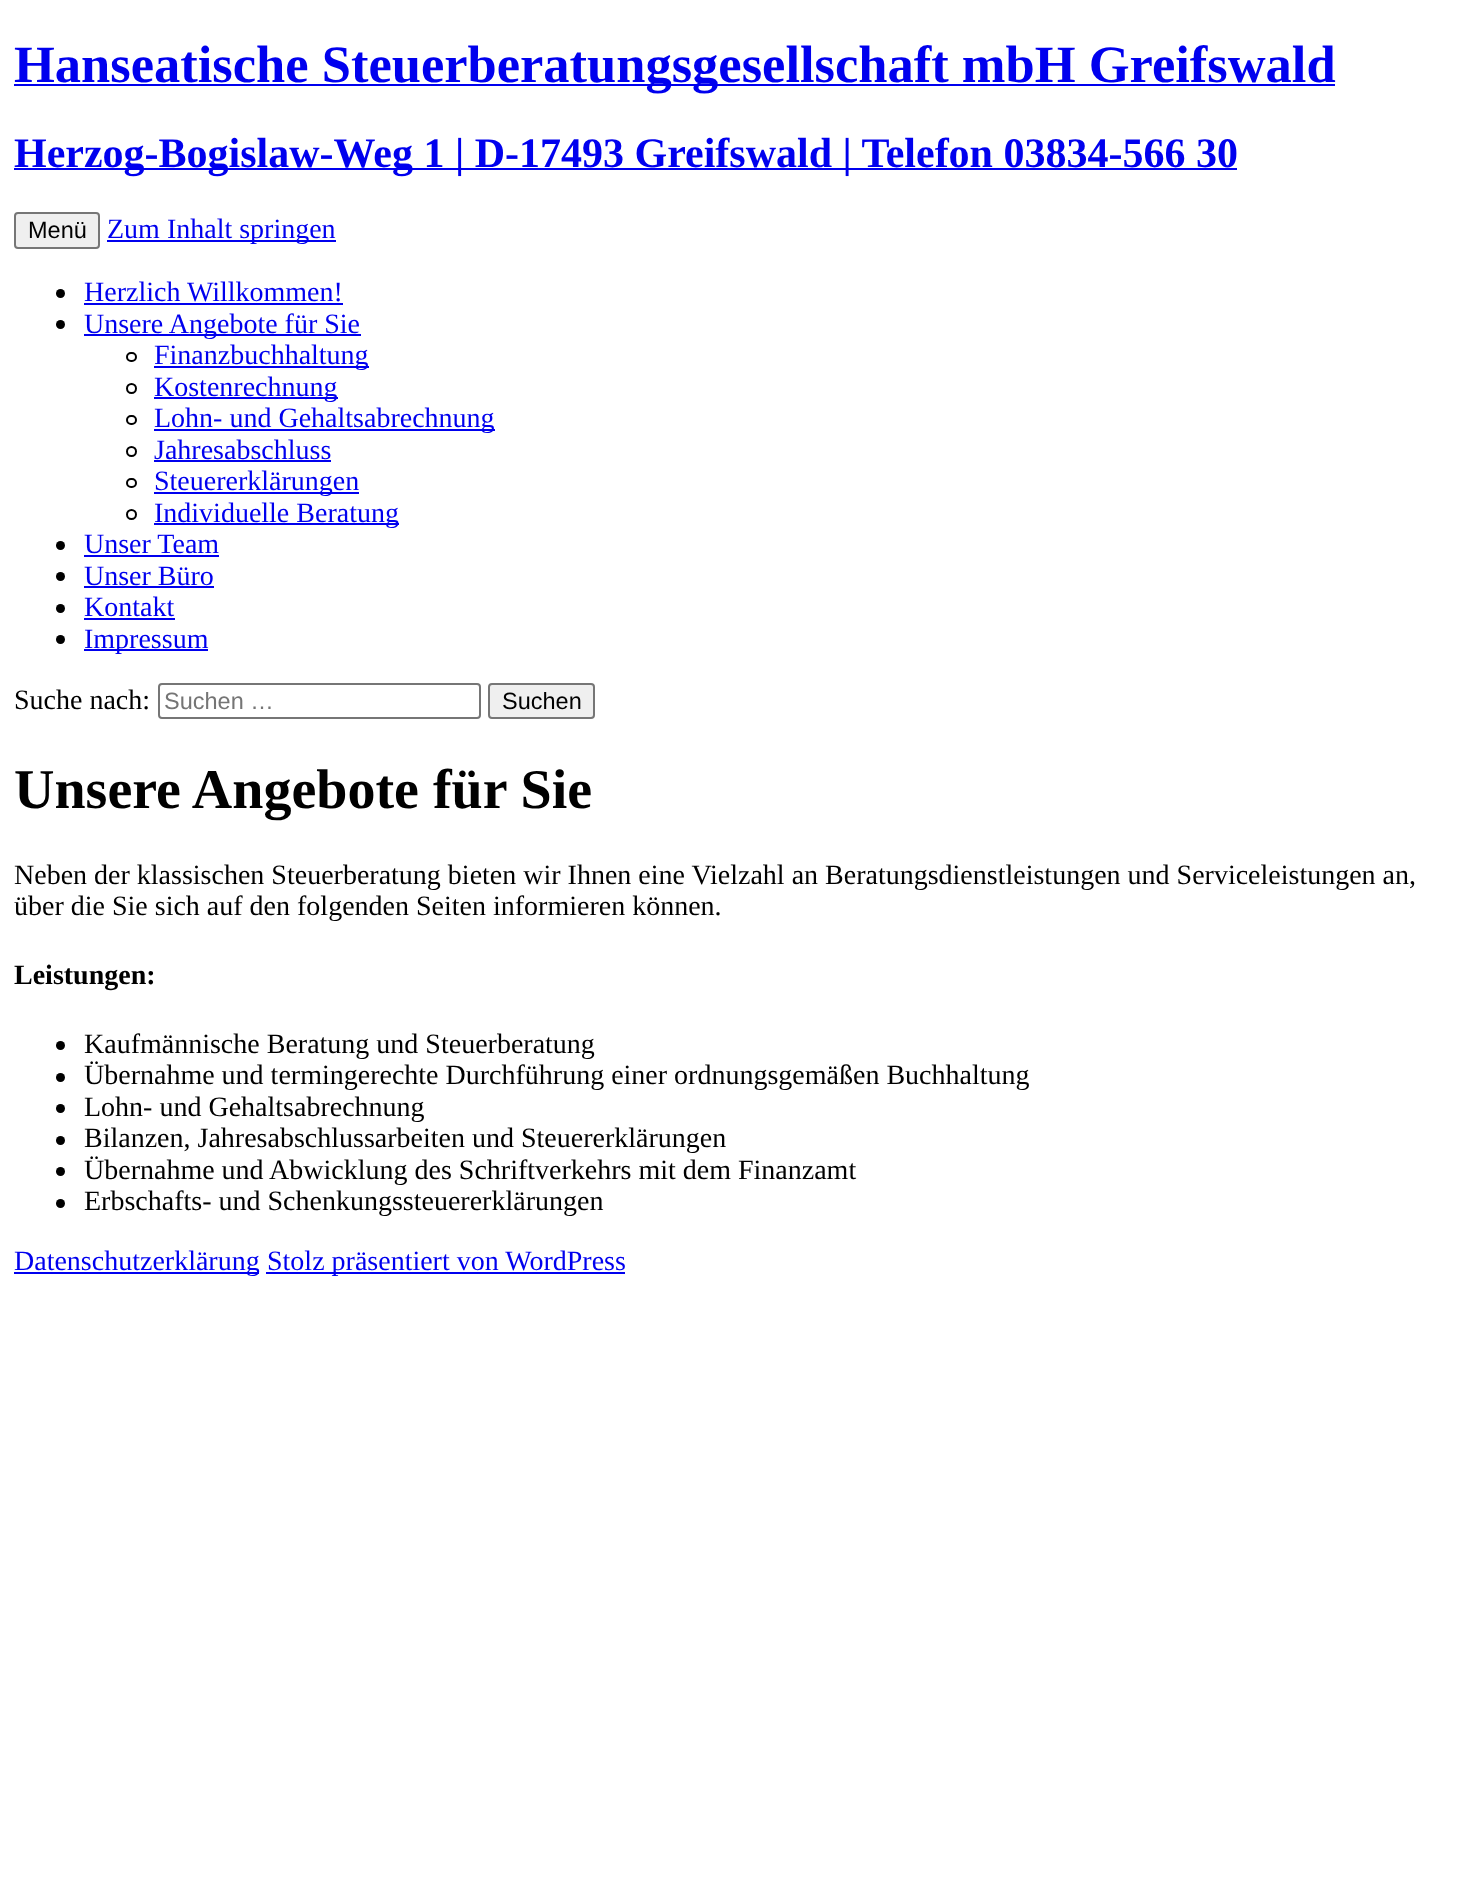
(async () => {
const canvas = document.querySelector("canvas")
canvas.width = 1482
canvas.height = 1896
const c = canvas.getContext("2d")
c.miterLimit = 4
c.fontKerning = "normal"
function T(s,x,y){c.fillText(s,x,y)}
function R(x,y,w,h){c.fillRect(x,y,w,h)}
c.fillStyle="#fff"
R(0,0,1482,1896)
c.fillStyle="#00e"
R(14,84,1321,2)
c.font="bold 52.5px Liberation Serif"
T("Hanseatische Steuerberatungsgesellschaft mbH Greifswald",14,82)
R(14,168,1223,2)
c.font="bold 42px Liberation Serif"
T("Herzog-Bogislaw-Weg 1 | D-17493 Greifswald | Telefon 03834-566 30",14,167)
c.fillStyle="#efefef"
c.beginPath()
c.roundRect(15,213,84,35,3)
c.fill()
c.strokeStyle="#767676"
c.lineWidth=2
c.stroke()
c.font="23.5px Liberation Sans"
c.fillStyle="#000"
T("Menü",28,238)
c.fillStyle="#00e"
R(107,240,229,2)
c.font="28px Liberation Serif"
T("Zum Inhalt springen",107,238)
c.fillStyle="#000"
c.beginPath()
c.arc(60.5,293.5,4.5,0,7)
c.fill()
c.fillStyle="#00e"
T("Herzlich Willkommen!",84,301)
R(84,303,259,2)
c.fillStyle="#000"
c.beginPath()
c.arc(60.5,324.5,4.5,0,7)
c.fill()
c.fillStyle="#00e"
R(84,334,277,2)
T("Unsere Angebote für Sie",84,333)
c.beginPath()
c.roundRect(127,353,9,8,4)
c.strokeStyle="#000"
c.stroke()
R(154,366,215,2)
T("Finanzbuchhaltung",154,364)
c.beginPath()
c.arc(131.5,388.5,4.5,0,7)
c.stroke()
R(154,397,184,2)
T("Kostenrechnung",154,396)
c.beginPath()
c.roundRect(127,416,9,8,4)
c.stroke()
R(154,429,341,2)
T("Lohn- und Gehaltsabrechnung",154,427)
c.beginPath()
c.arc(131.5,451.5,4.5,0,7)
c.stroke()
T("Jahresabschluss",154,459)
R(154,460,177,2)
c.beginPath()
c.roundRect(127,479,9,8,4)
c.stroke()
R(154,492,205,2)
T("Steuererklärungen",154,490)
c.beginPath()
c.arc(131.5,514.5,4.5,0,7)
c.stroke()
R(154,523,245,2)
T("Individuelle Beratung",154,522)
c.fillStyle="#000"
c.beginPath()
c.arc(60.5,545.5,4.5,0,7)
c.fill()
c.fillStyle="#00e"
T("Unser Team",84,553)
R(84,555,135,2)
c.fillStyle="#000"
c.beginPath()
c.arc(60.5,576.5,4.5,0,7)
c.fill()
c.fillStyle="#00e"
T("Unser Büro",84,585)
R(84,586,130,2)
c.fillStyle="#000"
c.beginPath()
c.arc(60.5,608.5,4.5,0,7)
c.fill()
c.fillStyle="#00e"
T("Kontakt",84,616)
R(84,618,91,2)
c.fillStyle="#000"
c.beginPath()
c.arc(60.5,639.5,4.5,0,7)
c.fill()
c.fillStyle="#00e"
R(84,649,124,2)
T("Impressum",84,648)
c.fillStyle="#000"
T("Suche nach:",14,709)
c.beginPath()
c.roundRect(159,684,321,34,3)
c.strokeStyle="#767676"
c.stroke()
c.font="23.5px Liberation Sans"
c.fillStyle="#757575"
T("Suchen …",164,709)
c.fillStyle="#efefef"
c.beginPath()
c.roundRect(489,684,105,34,3)
c.fill()
c.stroke()
c.fillStyle="#000"
T("Suchen",502,709)
c.font="bold 56px Liberation Serif"
T("Unsere Angebote für Sie",14,808)
c.font="28px Liberation Serif"
T("Neben der klassischen Steuerberatung bieten wir Ihnen eine Vielzahl an Beratungsdienstleistungen und Serviceleistungen an,",14,884)
T("über die Sie sich auf den folgenden Seiten informieren können.",14,915)
c.font="bold 28px Liberation Serif"
T("Leistungen:",14,984)
c.beginPath()
c.arc(60.5,1045.5,4.5,0,7)
c.fill()
c.font="28px Liberation Serif"
T("Kaufmännische Beratung und Steuerberatung",84,1053)
c.beginPath()
c.arc(60.5,1077.5,4.5,0,7)
c.fill()
T("Übernahme und termingerechte Durchführung einer ordnungsgemäßen Buchhaltung",84,1084)
c.beginPath()
c.arc(60.5,1108.5,4.5,0,7)
c.fill()
T("Lohn- und Gehaltsabrechnung",84,1116)
c.beginPath()
c.arc(60.5,1140.5,4.5,0,7)
c.fill()
T("Bilanzen, Jahresabschlussarbeiten und Steuererklärungen",84,1147)
c.beginPath()
c.arc(60.5,1171.5,4.5,0,7)
c.fill()
T("Übernahme und Abwicklung des Schriftverkehrs mit dem Finanzamt",84,1179)
c.beginPath()
c.arc(60.5,1203.5,4.5,0,7)
c.fill()
T("Erbschafts- und Schenkungssteuererklärungen",84,1210)
c.fillStyle="#00e"
R(14,1272,245,2)
T("Datenschutzerklärung",14,1270)
R(266,1272,359,2)
T("Stolz präsentiert von WordPress",267,1270)
})()
